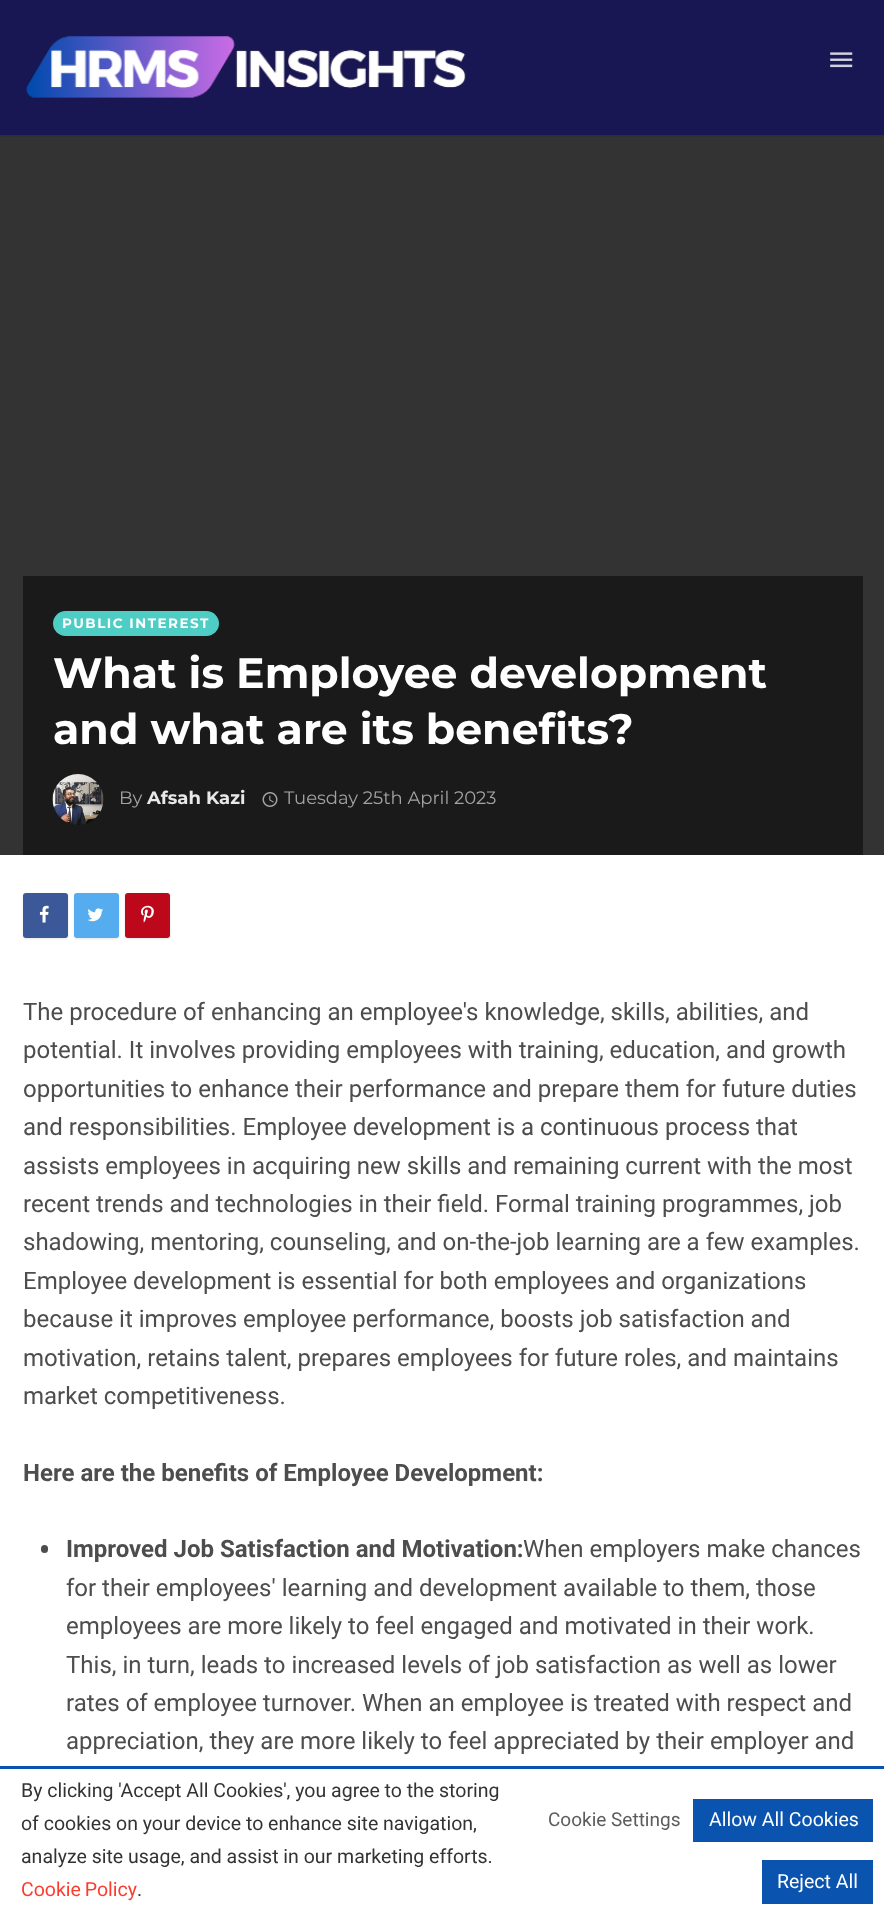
(async () => {
const canvas = document.querySelector("canvas")
canvas.width = 884
canvas.height = 1918
const c = canvas.getContext("2d")
c.miterLimit = 4
c.fontKerning = "normal"
function T(s,x,y){c.fillText(s,x,y)}
function R(x,y,w,h){c.fillRect(x,y,w,h)}
function Q(x,y,w,h,r){c.beginPath();c.roundRect(x,y,w,h,r);c.fill()}
async function I(src,x,y,w,h){const img=new Image();img.src=src;await img.decode();c.drawImage(img,x,y,w,h)}
c.fillStyle="#fff"
R(0,0,884,1918)
c.fillStyle="#2f2f2f"
R(0,135,884,2)
c.fillStyle="#191654"
R(0,0,884,135)
await I("1.png",26,36,440,62)
await I("2.png",830,52,23,16)
c.fillStyle="#333"
R(0,137,884,718)
c.fillStyle="#1a1a1a"
R(23,576,840,279)
c.fillStyle="#4ecdc4"
Q(53,611,166,25,12.5)
c.letterSpacing="1.5px"
c.font="bold 13.5px Montserrat"
c.fillStyle="#fff"
T("PUBLIC INTEREST",62,628)
c.letterSpacing="0px"
c.font="bold 42.6px Montserrat"
T("What is Employee development",53,688)
T("and what are its benefits?",53,744)
await I("3.png",52,774,52,51)
c.font="18px Montserrat"
c.fillStyle="#a3a3a3"
T("By",119,804)
c.font="bold 18px Montserrat"
c.fillStyle="#e8e8e8"
T("Afsah Kazi",147,804)
await I("4.png",262,792,16,15)
c.font="18px Montserrat"
c.fillStyle="#a3a3a3"
T("Tuesday 25th April 2023",284,804)
c.fillStyle="#0000001a"
c.filter="blur(1px)"
c.beginPath()
c.roundRect(23,894,45,45,3)
c.fill()
c.filter="none"
c.fillStyle="#3b5998"
Q(23,893,45,45,3)
await I("5.png",39,905,10,18)
c.fillStyle="#0000001a"
c.filter="blur(1px)"
c.beginPath()
c.roundRect(74,894,45,45,3)
c.fill()
c.filter="none"
c.fillStyle="#55acee"
Q(74,893,45,45,3)
await I("6.png",87,908,16,14)
c.fillStyle="#0000001a"
c.filter="blur(1px)"
c.beginPath()
c.roundRect(125,894,45,45,3)
c.fill()
c.filter="none"
c.fillStyle="#bd081c"
Q(125,893,45,45,3)
await I("7.png",141,905,13,18)
c.font="24px Roboto"
c.fillStyle="#4d4d4d"
T("The procedure of enhancing an employee's knowledge, skills, abilities, and",23,1020)
T("potential. It involves providing employees with training, education, and growth",23,1058)
T("opportunities to enhance their performance and prepare them for future duties",23,1097)
T("and responsibilities. Employee development is a continuous process that",23,1135)
T("assists employees in acquiring new skills and remaining current with the most",23,1174)
T("recent trends and technologies in their field. Formal training programmes, job",23,1212)
T("shadowing, mentoring, counseling, and on-the-job learning are a few examples.",23,1250)
T("Employee development is essential for both employees and organizations",23,1289)
T("because it improves employee performance, boosts job satisfaction and",23,1327)
T("motivation, retains talent, prepares employees for future roles, and maintains",23,1366)
T("market competitiveness.",23,1404)
c.font="bold 24px Roboto"
T("Here are the benefits of Employee Development:",23,1481)
Q(41,1545,7,8,3.5)
T("Improved Job Satisfaction and Motivation:",66,1557)
c.font="24px Roboto"
T("When employers make chances",523,1557)
T("for their employees' learning and development available to them, those",66,1596)
T("employees are more likely to feel engaged and motivated in their work.",66,1634)
T("This, in turn, leads to increased levels of job satisfaction as well as lower",66,1673)
T("rates of employee turnover. When an employee is treated with respect and",66,1711)
T("appreciation, they are more likely to feel appreciated by their employer and",66,1749)
c.fillStyle="#0a53af"
R(0,1766,884,3)
c.font="19.5px Roboto"
c.fillStyle="#333"
T("By clicking 'Accept All Cookies', you agree to the storing",21,1797)
T("of cookies on your device to enhance site navigation,",21,1830)
T("analyze site usage, and assist in our marketing efforts.",21,1863)
c.wordSpacing="-1px"
c.fillStyle="#fc3c2d"
T("Cookie Policy",21,1896)
c.wordSpacing="0px"
c.fillStyle="#333"
T(".",137,1896)
c.font="19px Roboto"
c.fillStyle="#5c5c5c"
T("Cookie Settings",548,1826)
c.fillStyle="#0a53af"
R(693,1799,180,43)
c.font="19.5px Roboto"
c.fillStyle="#fff"
T("Allow All Cookies",709,1826)
c.fillStyle="#0a53af"
R(762,1860,111,44)
c.fillStyle="#fff"
T("Reject All",777,1888)
})()
